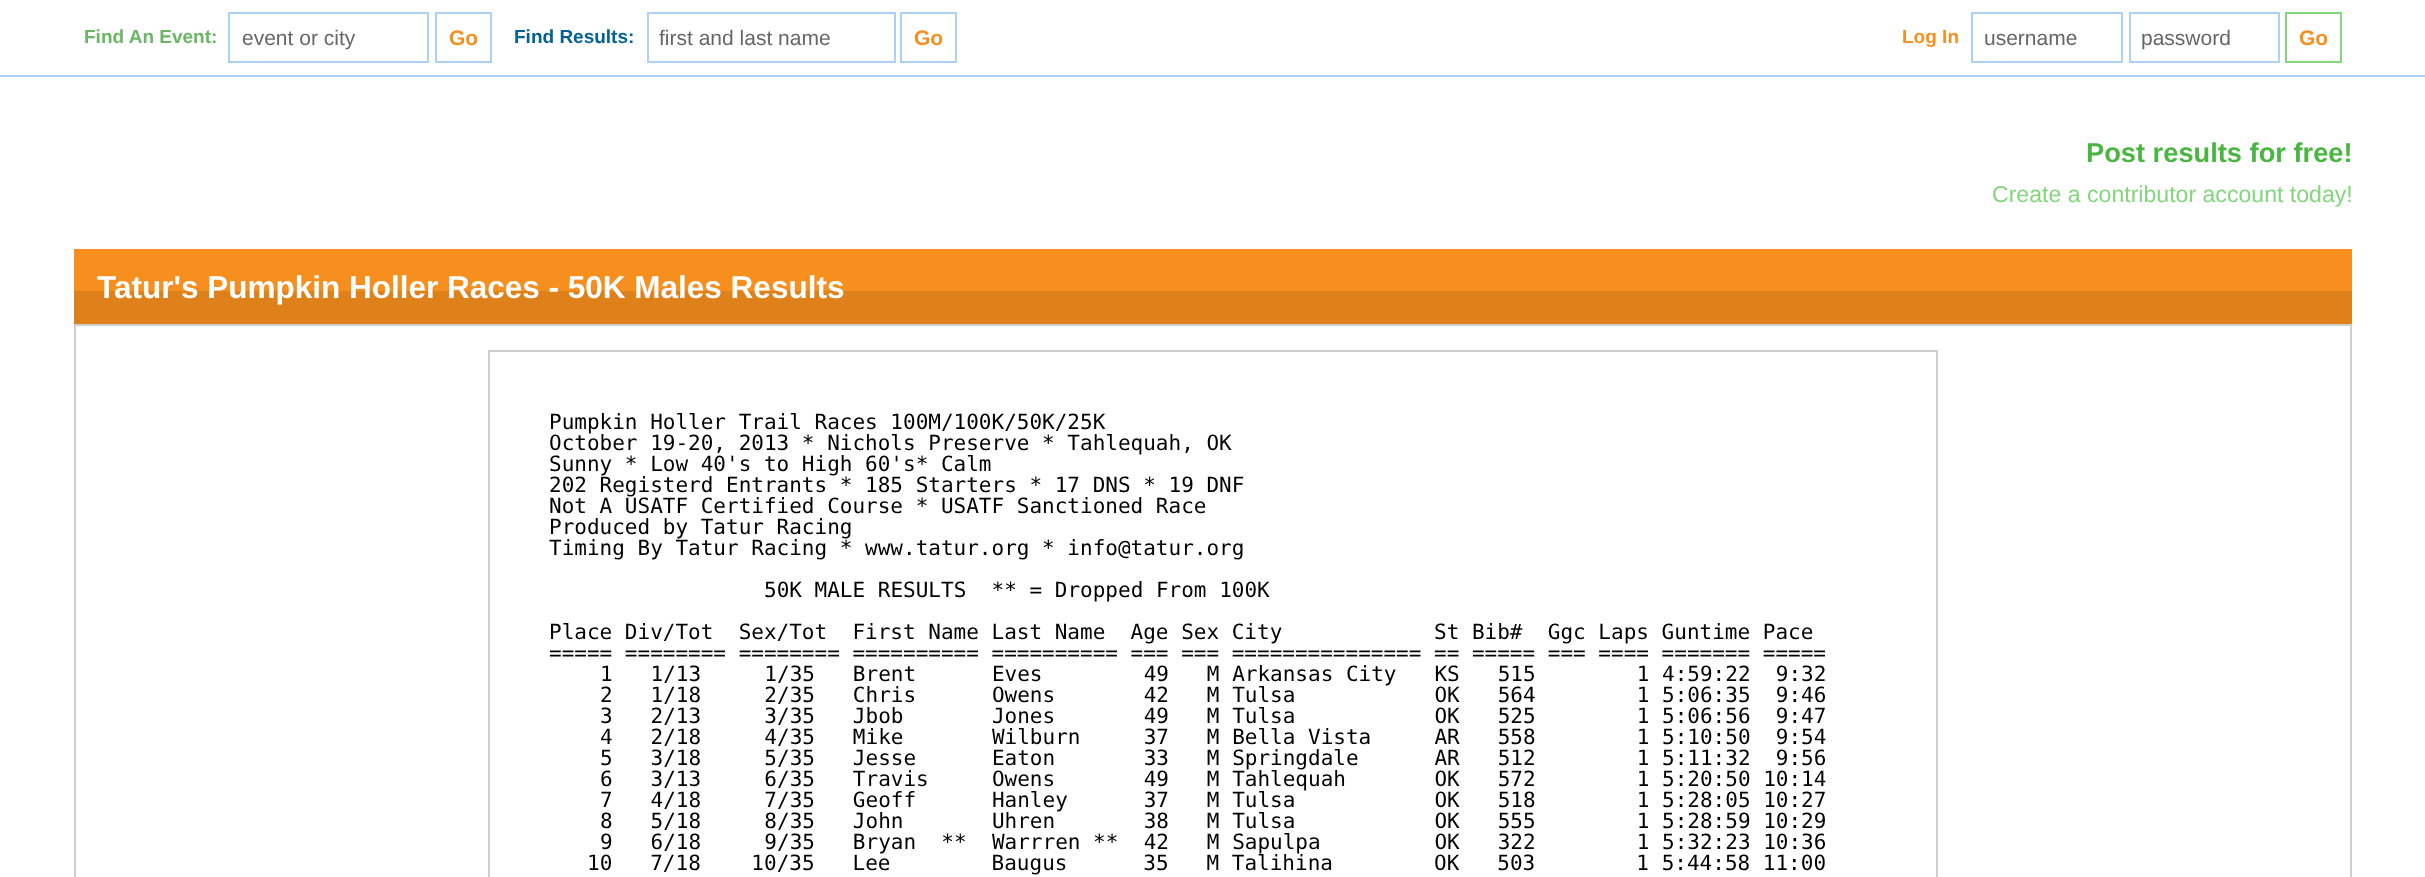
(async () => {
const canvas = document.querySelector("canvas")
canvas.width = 2425
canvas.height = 877
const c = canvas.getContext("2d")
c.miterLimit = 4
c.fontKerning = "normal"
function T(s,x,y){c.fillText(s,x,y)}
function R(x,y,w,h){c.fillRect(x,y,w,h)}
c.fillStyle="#fff"
R(0,0,2425,877)
c.fillStyle="#acd0f7"
R(0,75,2425,2)
c.font="bold 19px Liberation Sans"
c.fillStyle="#6bb766"
T("Find An Event:",84,43)
c.strokeStyle="#acd0f7"
c.lineWidth=2
c.strokeRect(229,13,199,49)
c.font="21px Liberation Sans"
c.fillStyle="#666"
T("event or city",242,45)
c.strokeRect(436,13,55,49)
c.font="bold 21px Liberation Sans"
c.fillStyle="#f78f1e"
T("Go",449,45)
c.font="bold 19px Liberation Sans"
c.fillStyle="#036095"
T("Find Results:",514,43)
c.strokeRect(648,13,247,49)
c.font="21px Liberation Sans"
c.fillStyle="#666"
T("first and last name",659,45)
c.strokeRect(901,13,55,49)
c.font="bold 21px Liberation Sans"
c.fillStyle="#f78f1e"
T("Go",914,45)
c.font="bold 19px Liberation Sans"
T("Log In",1902,43)
c.strokeRect(1972,13,150,49)
c.font="21px Liberation Sans"
c.fillStyle="#666"
T("username",1984,45)
c.strokeRect(2130,13,149,49)
T("password",2141,45)
c.strokeStyle="#84d67d"
c.strokeRect(2286,13,55,49)
c.font="bold 21px Liberation Sans"
c.fillStyle="#f78f1e"
T("Go",2299,45)
c.font="bold 27.25px Liberation Sans"
c.fillStyle="#4ab641"
T("Post results for free!",2086,162)
c.font="23.1px Liberation Sans"
c.fillStyle="#84d67d"
T("Create a contributor account today!",1992,202)
c.fillStyle="#f78f1e"
R(74,249,2278,42)
c.fillStyle="#de811b"
R(74,291,2278,33)
c.font="bold 31.5px Liberation Sans"
c.fillStyle="#fff"
T("Tatur's Pumpkin Holler Races - 50K Males Results",97,298)
c.strokeStyle="#cfcfcf"
c.strokeRect(75,325,2276,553)
c.strokeRect(489,351,1448,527)
c.font="21px DejaVu Sans Mono"
c.fillStyle="#000"
T("Pumpkin Holler Trail Races 100M/100K/50K/25K",549,429)
T("October 19-20, 2013 * Nichols Preserve * Tahlequah, OK",549,450)
T("Sunny * Low 40's to High 60's* Calm",549,471)
T("202 Registerd Entrants * 185 Starters * 17 DNS * 19 DNF",549,492)
T("Not A USATF Certified Course * USATF Sanctioned Race",549,513)
T("Produced by Tatur Racing",549,534)
T("Timing By Tatur Racing * www.tatur.org * info@tatur.org",549,555)
T("50K MALE RESULTS  ** = Dropped From 100K",764,597)
T("Place Div/Tot  Sex/Tot  First Name Last Name  Age Sex City            St Bib#  Ggc Laps Guntime Pace",549,639)
T("===== ======== ======== ========== ========== === === =============== == ===== === ==== ======= =====",549,660)
T("1   1/13     1/35   Brent      Eves        49   M Arkansas City   KS   515        1 4:59:22  9:32",600,681)
T("2   1/18     2/35   Chris      Owens       42   M Tulsa           OK   564        1 5:06:35  9:46",600,702)
T("3   2/13     3/35   Jbob       Jones       49   M Tulsa           OK   525        1 5:06:56  9:47",600,723)
T("4   2/18     4/35   Mike       Wilburn     37   M Bella Vista     AR   558        1 5:10:50  9:54",600,744)
T("5   3/18     5/35   Jesse      Eaton       33   M Springdale      AR   512        1 5:11:32  9:56",600,765)
T("6   3/13     6/35   Travis     Owens       49   M Tahlequah       OK   572        1 5:20:50 10:14",600,786)
T("7   4/18     7/35   Geoff      Hanley      37   M Tulsa           OK   518        1 5:28:05 10:27",600,807)
T("8   5/18     8/35   John       Uhren       38   M Tulsa           OK   555        1 5:28:59 10:29",600,828)
T("9   6/18     9/35   Bryan  **  Warrren **  42   M Sapulpa         OK   322        1 5:32:23 10:36",600,849)
T("10   7/18    10/35   Lee        Baugus      35   M Talihina        OK   503        1 5:44:58 11:00",587,870)
})()
